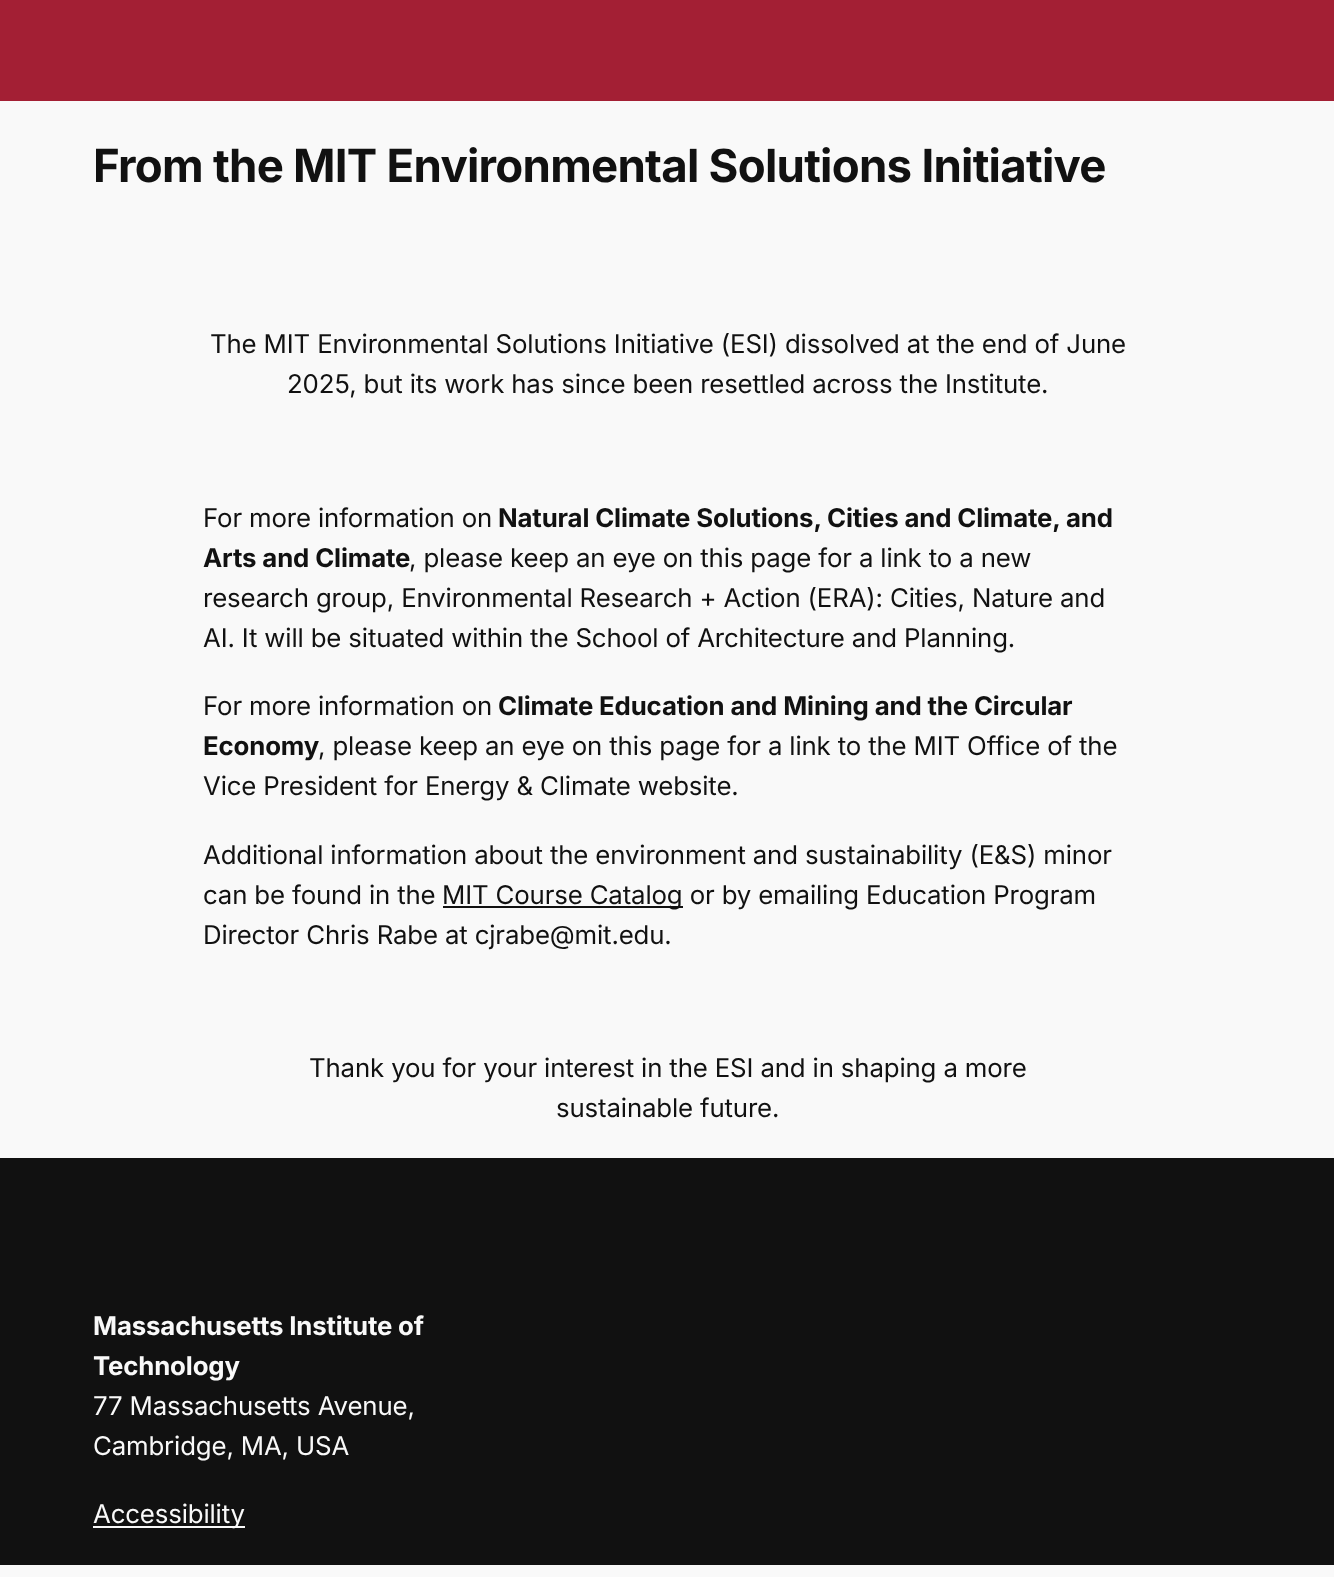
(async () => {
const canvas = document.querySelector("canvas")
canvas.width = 1334
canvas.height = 1577
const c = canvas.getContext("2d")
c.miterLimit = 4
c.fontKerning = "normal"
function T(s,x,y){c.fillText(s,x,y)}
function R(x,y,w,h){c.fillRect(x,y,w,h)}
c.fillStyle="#f9f9f9"
R(0,0,1334,1577)
c.fillStyle="#a31f34"
R(0,0,1334,101)
c.letterSpacing="-0.75px"
c.font="bold 45.6px Inter"
c.fillStyle="#111"
T("From the MIT Environmental Solutions Initiative",93,182)
c.letterSpacing="-0.15px"
c.font="25.8px Inter"
T("The MIT Environmental Solutions Initiative (ESI) dissolved at the end of June",210,353)
T("2025, but its work has since been resettled across the Institute.",287,393)
T("For more information on",203,527)
c.font="bold 25.8px Inter"
T("Natural Climate Solutions, Cities and Climate, and",498,527)
T("Arts and Climate",203,567)
c.font="25.8px Inter"
T(", please keep an eye on this page for a link to a new",409,567)
T("research group, Environmental Research + Action (ERA): Cities, Nature and",203,607)
T("AI. It will be situated within the School of Architecture and Planning.",203,647)
T("For more information on",203,715)
c.font="bold 25.8px Inter"
T("Climate Education and Mining and the Circular",498,715)
T("Economy",203,755)
c.font="25.8px Inter"
T(", please keep an eye on this page for a link to the MIT Office of the",318,755)
T("Vice President for Energy & Climate website.",203,795)
T("Additional information about the environment and sustainability (E&S) minor",203,864)
T("can be found in the",203,904)
R(443,906,240,2)
T("MIT Course Catalog or by emailing Education Program",442,904)
T("Director Chris Rabe at cjrabe@mit.edu.",203,944)
T("Thank you for your interest in the ESI and in shaping a more",309,1077)
T("sustainable future.",556,1117)
R(0,1158,1334,407)
c.font="bold 25.8px Inter"
c.fillStyle="#f9f9f9"
T("Massachusetts Institute of",93,1335)
T("Technology",93,1375)
c.font="25.8px Inter"
T("77 Massachusetts Avenue,",93,1415)
T("Cambridge, MA, USA",93,1455)
R(93,1526,152,2)
T("Accessibility",93,1523)
})()
